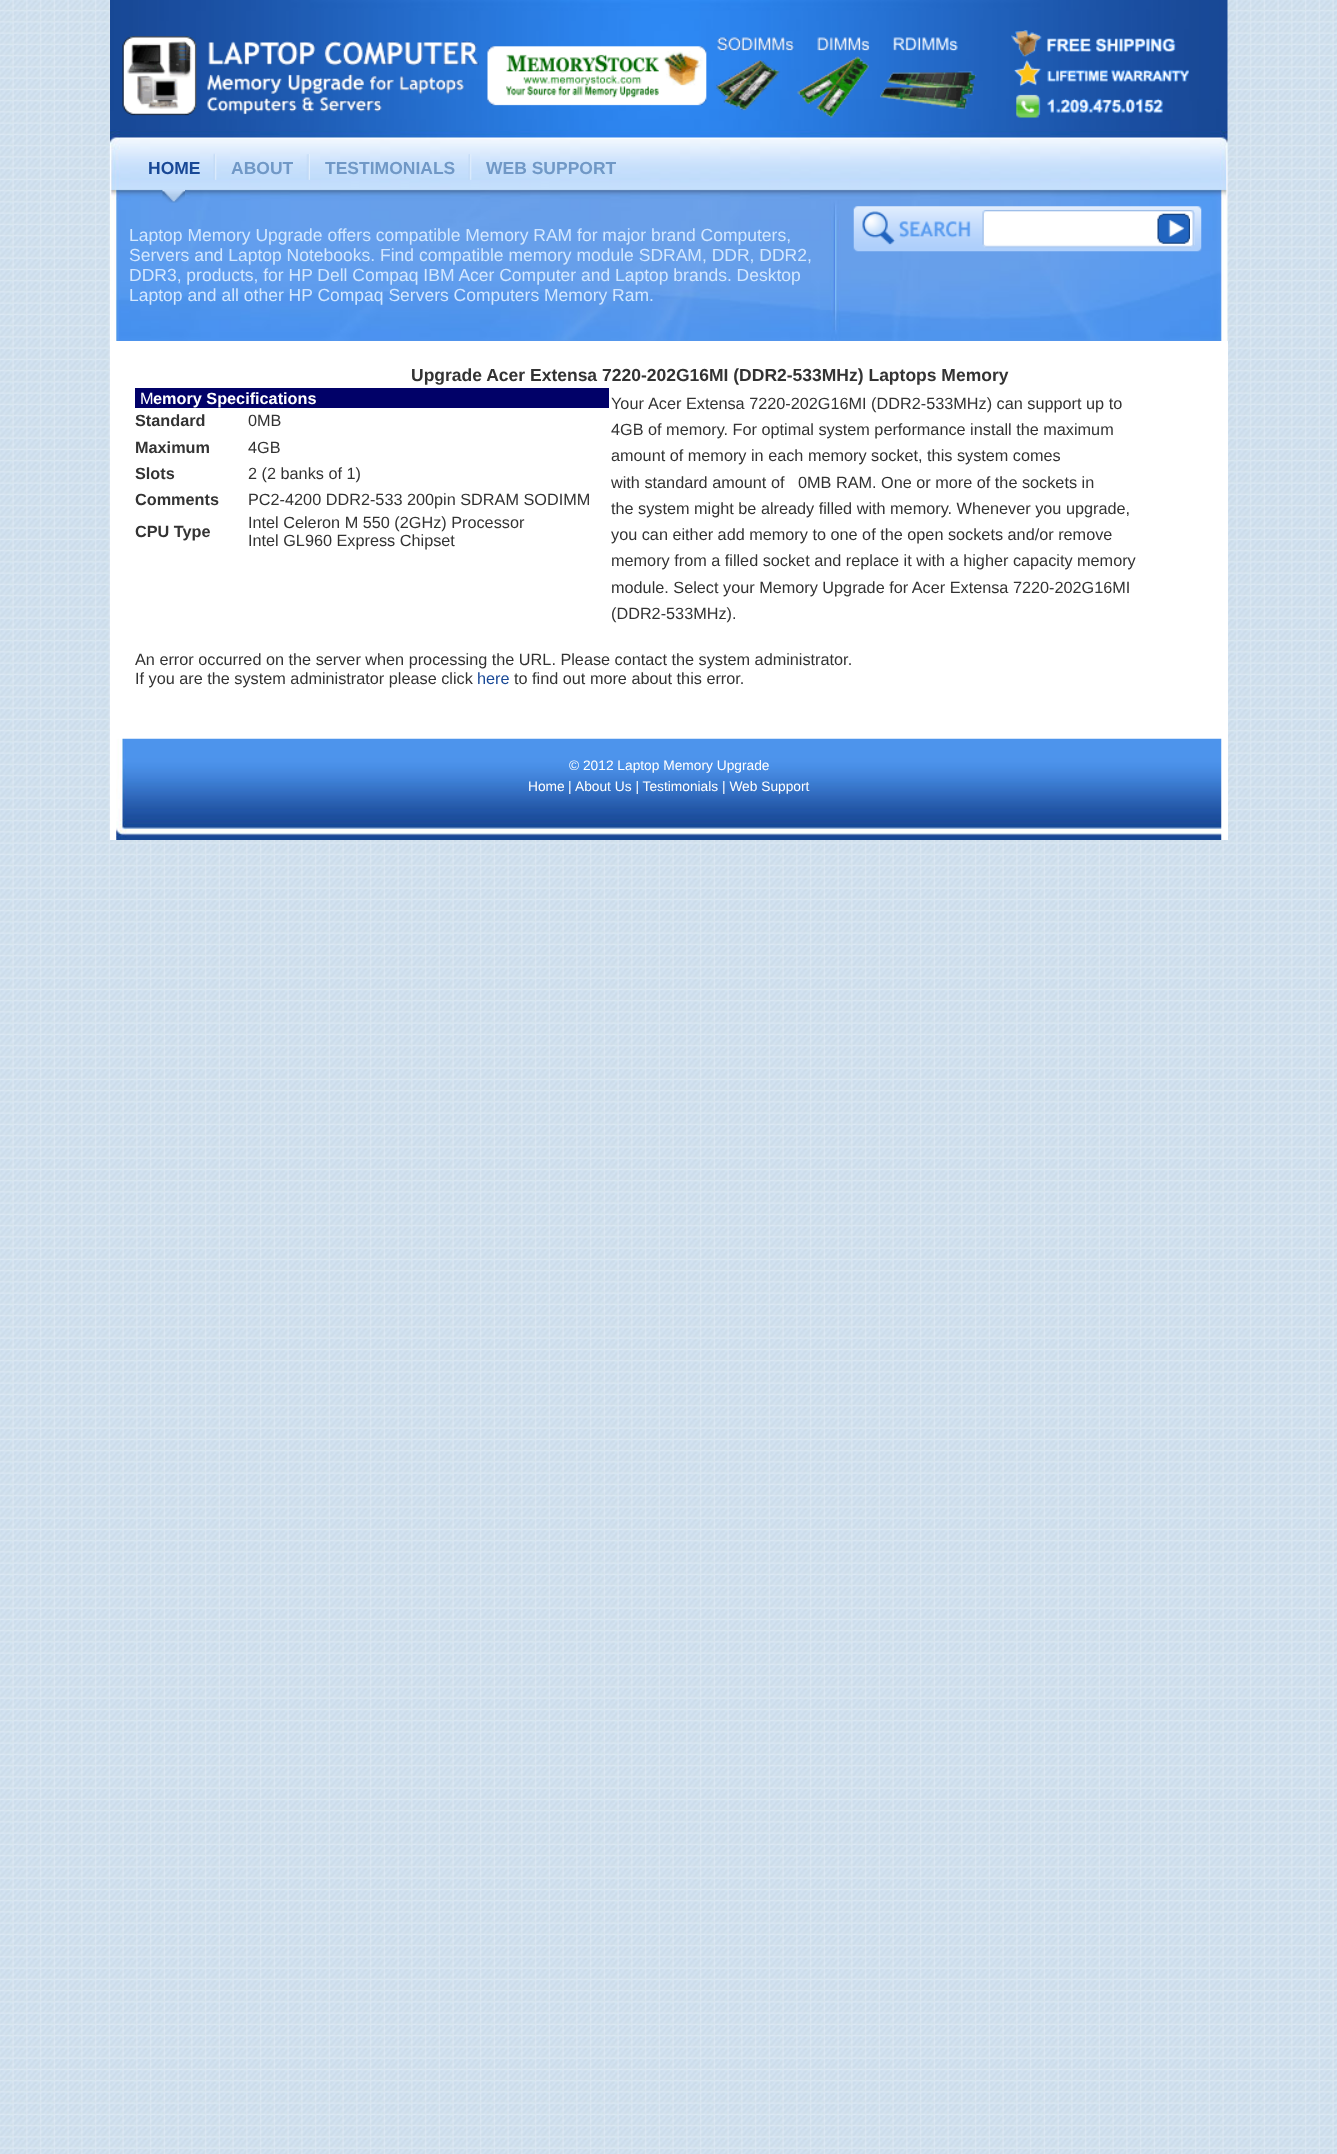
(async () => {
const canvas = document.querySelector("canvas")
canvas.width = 1337
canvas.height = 2154
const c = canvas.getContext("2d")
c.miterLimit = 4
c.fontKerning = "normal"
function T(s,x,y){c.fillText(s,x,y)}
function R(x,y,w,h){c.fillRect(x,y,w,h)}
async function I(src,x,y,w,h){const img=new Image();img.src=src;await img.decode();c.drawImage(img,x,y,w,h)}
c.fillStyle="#fff"
R(0,0,1337,2154)
await I("1.png",0,0,1337,2154)
await I("2.png",110,0,1118,341)
await I("3.png",122,30,1067,88)
await I("4.png",162,189,23,14)
c.font="bold 17.5px Liberation Sans"
c.fillStyle="#184896"
T("HOME",148,174)
await I("5.png",213,153,4,27)
c.fillStyle="#7098c6"
T("ABOUT",231,174)
await I("6.png",306,154,4,26)
T("TESTIMONIALS",325,174)
await I("7.png",468,154,4,26)
T("WEB SUPPORT",486,174)
c.font="17.5px Liberation Sans"
c.fillStyle="#d2e7ff"
T("Laptop Memory Upgrade offers compatible Memory RAM for major brand Computers,",129,241)
T("Servers and Laptop Notebooks. Find compatible memory module SDRAM, DDR, DDR2,",129,261)
T("DDR3, products, for HP Dell Compaq IBM Acer Computer and Laptop brands. Desktop",129,281)
T("Laptop and all other HP Compaq Servers Computers Memory Ram.",129,301)
await I("8.png",853,206,349,46)
await I("9.png",982,210,213,38)
await I("10.png",1157,213,33,31)
c.fillStyle="#fff"
R(110,341,1118,499)
c.font="bold 17.5px Liberation Sans"
c.fillStyle="#333"
T("Upgrade Acer Extensa 7220-202G16MI (DDR2-533MHz) Laptops Memory",411,381)
c.fillStyle="#010168"
R(135,388,474,20)
c.font="16.25px Liberation Sans"
c.fillStyle="#fff"
T("M",140,404)
c.font="bold 16.25px Liberation Sans"
T("emory Specifications",153,404)
c.fillStyle="#333"
T("Standard",135,426)
c.font="16.25px Liberation Sans"
T("0MB",248,426)
c.font="bold 16.25px Liberation Sans"
T("Maximum",135,453)
c.font="16.25px Liberation Sans"
T("4GB",248,453)
c.font="bold 16.25px Liberation Sans"
T("Slots",135,479)
c.font="16.25px Liberation Sans"
T("2 (2 banks of 1)",248,479)
c.font="bold 16.25px Liberation Sans"
T("Comments",135,505)
c.font="16.25px Liberation Sans"
T("PC2-4200 DDR2-533 200pin SDRAM SODIMM",248,505)
c.font="bold 16.25px Liberation Sans"
T("CPU Type",135,537)
c.font="16.25px Liberation Sans"
T("Intel Celeron M 550 (2GHz) Processor",248,528)
T("Intel GL960 Express Chipset",248,546)
T("Your",611,409)
T("Acer Extensa 7220-202G16MI (DDR2-533MHz) can support up to",648,409)
T("4GB of memory. For optimal system performance install the maximum",611,435)
T("amount of memory in each memory socket, this system comes",611,461)
T("with standard amount of   0MB RAM. One or more of the sockets in",611,488)
T("the system might be already filled with memory. Whenever you upgrade,",611,514)
T("you can either add memory to one of the open sockets and/or remove",611,540)
T("memory from a filled socket and replace it with a higher capacity memory",611,566)
T("module. Select your Memory Upgrade for Acer Extensa 7220-202G16MI",611,593)
T("(DDR2-533MHz).",611,619)
T("An error occurred on the server when processing the URL. Please contact the system administrator.",135,665)
T("If you are the system administrator please click",135,684)
c.fillStyle="#184896"
T("here",477,684)
c.fillStyle="#333"
T("to find out more about this error.",514,684)
await I("11.png",116,738,1106,102)
c.font="13.75px Liberation Sans"
c.fillStyle="#fff"
T("© 2012 Laptop Memory Upgrade",569,770)
T("Home",528,791)
T("|",568,791)
T("About Us | Testimonials | Web Support",575,791)
})()
